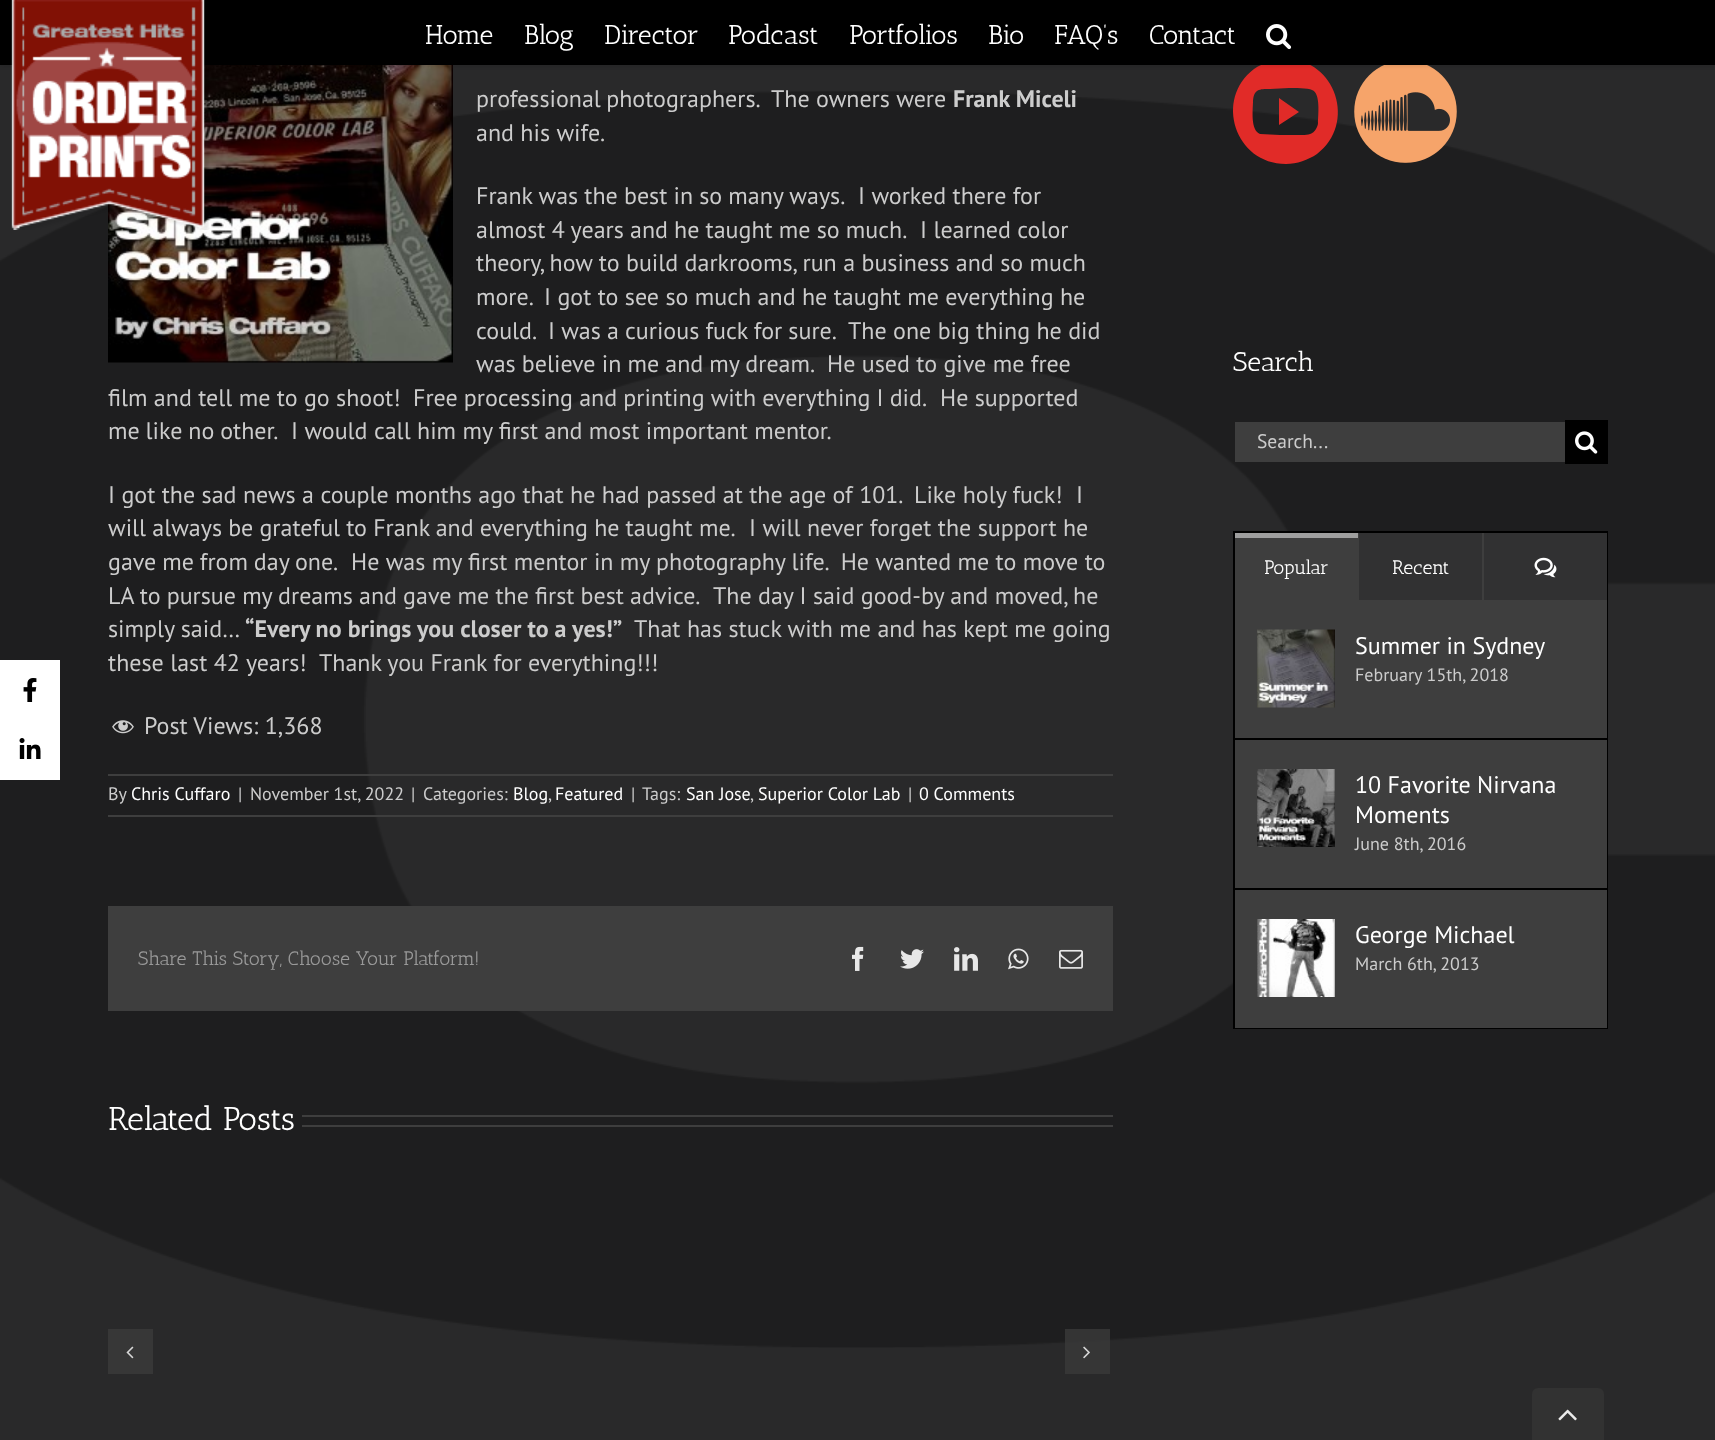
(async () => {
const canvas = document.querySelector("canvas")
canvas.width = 1715
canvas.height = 1440
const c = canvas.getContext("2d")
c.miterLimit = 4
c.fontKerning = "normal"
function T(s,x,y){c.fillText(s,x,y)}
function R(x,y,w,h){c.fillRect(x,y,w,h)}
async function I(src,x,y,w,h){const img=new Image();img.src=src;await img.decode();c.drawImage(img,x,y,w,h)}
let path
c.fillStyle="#29292a"
R(0,0,1715,1440)
await I("5.png",0,91,1715,1257)
await I("6.png",108,65,345,298)
c.fillStyle="#e12b28"
path = new Path2D("M1286 59c-12 0-23 4-32 10c-40 30-19 95 32 95c11 0 22-4 31-10c40-30 19-95-31-95zm32 64c0 2-1 4-2 6c-4 7-11 6-18 6h-18l-20-1c-10-4-7-25-7-33c1-12 6-12 17-12l19-1c5 0 19 0 23 2c9 3 6 26 6 33zm-39 2l20-13l-20-14z")
c.fill(path)
await I("15.png",1354,65,103,98)
c.fillStyle="#0000001f"
c.filter="blur(2px)"
c.beginPath()
c.rect(0,2,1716,64)
c.fill()
c.filter="none"
c.fillStyle="#000"
R(0,0,1715,65)
await I("1.png",11,0,198,230)
c.fillStyle="#fff"
R(0,660,60,120)
await I("2.png",23,678,14,24)
await I("3.png",19,738,22,21)
c.font="27px Antic Slab"
T("Home",425,44)
T("Blog",524,44)
T("Director",604,44)
T("Podcast",728,44)
T("Portfolios",849,44)
T("Bio",988,44)
T("FAQ’s",1054,44)
T("Contact",1149,44)
await I("4.png",1266,24,26,26)
c.wordSpacing="-1px"
c.font="24px PT Sans"
c.fillStyle="#ccc"
T("professional photographers.",476,107)
c.wordSpacing="0px"
T("The owners were",771,107)
c.font="bold 24px PT Sans"
T("Frank Miceli",953,107)
c.font="24px PT Sans"
T("and his wife.",476,141)
c.wordSpacing="-0.25px"
T("Frank was the best in so many ways.",476,204)
c.wordSpacing="0px"
T("I worked there for",858,204)
c.wordSpacing="-0.25px"
T("almost 4 years and he taught me so much.",476,238)
c.wordSpacing="0px"
T("I learned color",920,238)
T("theory, how to build darkrooms, run a business and so much",476,271)
T("more.",476,305)
T("I got to see so much and he taught me everything he",544,305)
T("could.",476,339)
c.wordSpacing="-0.25px"
T("I was a curious fuck for sure.",548,339)
c.wordSpacing="0px"
T("The one big thing he did",848,339)
c.wordSpacing="-0.25px"
T("was believe in me and my dream.",476,372)
c.wordSpacing="0px"
T("He used to give me free",827,372)
T("film and tell me to go shoot!",108,406)
c.wordSpacing="-0.25px"
T("Free processing and printing with everything I did.",413,406)
c.wordSpacing="0px"
T("He supported",940,406)
c.wordSpacing="-0.5px"
T("me like no other.",108,439)
c.wordSpacing="0px"
T("I would call him my first and most important mentor.",291,439)
T("I got the sad news a couple months ago that he had passed at the age of 101.",108,503)
T("Like holy fuck!",914,503)
T("I",1076,503)
c.wordSpacing="-0.25px"
T("will always be grateful to Frank and everything he taught me.",108,536)
c.wordSpacing="0px"
T("I will never forget the support he",749,536)
c.wordSpacing="-0.5px"
T("gave me from day one.",108,570)
c.wordSpacing="0px"
T("He was my first mentor in my photography life.  He wanted me to move to",351,570)
c.wordSpacing="-0.25px"
T("LA to pursue my dreams and gave me the first best advice.",108,604)
c.wordSpacing="0px"
T("The day I said good-by and moved, he",713,604)
T("simply said…",108,637)
c.font="bold 24px PT Sans"
T("“Every no brings you closer to a yes!”",245,637)
c.font="24px PT Sans"
T("That has stuck with me and has kept me going",634,637)
T("these last 42 years!",108,671)
T("Thank you Frank for everything!!!",319,671)
await I("7.png",112,720,22,14)
T("Post Views: 1,368",144,734)
c.fillStyle="#3e3e3e"
R(108,774,1005,2)
R(108,815,1005,2)
c.font="18px PT Sans"
c.fillStyle="#ccc"
T("By",108,800)
c.fillStyle="#fff"
T("Chris Cuffaro",131,800)
c.fillStyle="#ccc"
T("|",238,800)
T("November 1st, 2022",250,800)
T("|",411,800)
T("Categories:",423,800)
c.fillStyle="#fff"
T("Blog",513,800)
c.fillStyle="#ccc"
T(",",548,800)
c.fillStyle="#fff"
T("Featured",555,800)
c.fillStyle="#ccc"
T("|",631,800)
T("Tags:",642,800)
c.fillStyle="#fff"
T("San Jose",686,800)
c.fillStyle="#ccc"
T(",",750,800)
c.fillStyle="#fff"
T("Superior Color Lab",758,800)
c.fillStyle="#ccc"
T("|",908,800)
c.fillStyle="#fff"
T("0 Comments",919,800)
c.fillStyle="#3e3e3e"
R(108,906,1005,105)
c.font="19.5px Antic Slab"
c.fillStyle="#999"
T("Share This Story, Choose Your Platform!",138,965)
await I("8.png",852,946,12,25)
await I("9.png",900,949,24,20)
await I("10.png",954,947,24,24)
await I("11.png",1008,948,21,22)
await I("12.png",1059,949,24,20)
c.font="33px Antic Slab"
c.fillStyle="#fff"
T("Related Posts",108,1130)
c.fillStyle="#3e3e3e"
R(302,1115,811,2)
R(302,1125,811,2)
c.fillStyle="#373737"
R(108,1329,45,45)
await I("13.png",126,1346,8,13)
c.fillStyle="#3a3a3acc"
R(1065,1329,45,45)
await I("14.png",1083,1346,7,13)
c.font="27px Antic Slab"
c.fillStyle="#fff"
T("Search",1233,371)
c.fillStyle="#3e3e3e"
R(1235,422,330,40)
c.font="19.5px PT Sans"
c.fillStyle="#ccc"
T("Search...",1257,448)
c.fillStyle="#000"
R(1565,420,43,44)
await I("16.png",1575,431,23,23)
c.strokeStyle="#000"
c.lineWidth=2
c.strokeRect(1234,532,373,496)
c.fillStyle="#3e3e3e"
R(1358,533,1,67)
R(1235,538,123,62)
c.fillStyle="#9e9e9e"
R(1235,533,123,5)
c.font="19.5px Antic Slab"
c.fillStyle="#fff"
T("Popular",1264,574)
c.fillStyle="#3e3e3e"
R(1482,533,2,67)
c.fillStyle="#313132"
R(1359,533,123,67)
c.fillStyle="#fff"
T("Recent",1392,574)
c.fillStyle="#313132"
R(1484,533,123,67)
await I("17.png",1534,557,23,21)
c.fillStyle="#3e3e3e"
R(1235,600,372,428)
c.fillStyle="#000"
R(1235,738,372,2)
await I("18.png",1257,629,78,79)
c.font="24px PT Sans"
c.fillStyle="#fff"
T("Summer in Sydney",1355,654)
c.font="18px PT Sans"
c.fillStyle="#ccc"
T("February 15th, 2018",1355,681)
c.fillStyle="#000"
R(1235,888,372,2)
await I("19.png",1257,769,78,78)
c.font="24px PT Sans"
c.fillStyle="#fff"
T("10 Favorite Nirvana",1355,793)
T("Moments",1355,823)
c.font="18px PT Sans"
c.fillStyle="#ccc"
T("June 8th, 2016",1355,850)
await I("20.png",1257,919,78,78)
c.font="24px PT Sans"
c.fillStyle="#fff"
T("George Michael",1355,943)
c.font="18px PT Sans"
c.fillStyle="#ccc"
T("March 6th, 2013",1355,970)
c.fillStyle="#323232"
c.beginPath()
c.roundRect(1532,1388,72,52,[6,6,0,0])
c.fill()
await I("21.png",1558,1409,19,12)
})()
